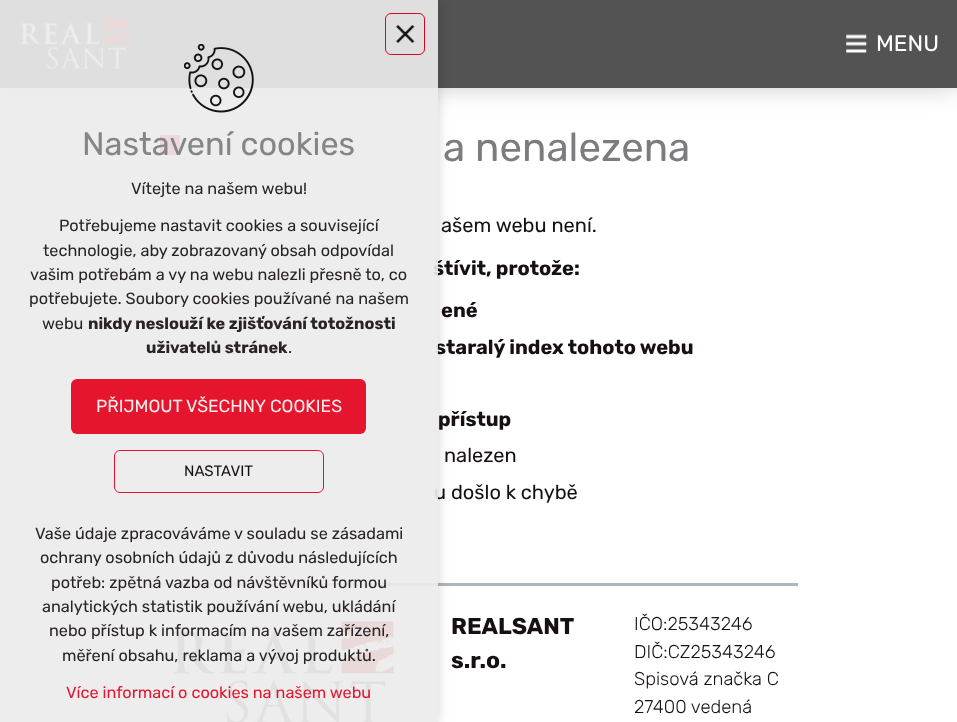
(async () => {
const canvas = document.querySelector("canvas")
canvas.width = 957
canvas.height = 722
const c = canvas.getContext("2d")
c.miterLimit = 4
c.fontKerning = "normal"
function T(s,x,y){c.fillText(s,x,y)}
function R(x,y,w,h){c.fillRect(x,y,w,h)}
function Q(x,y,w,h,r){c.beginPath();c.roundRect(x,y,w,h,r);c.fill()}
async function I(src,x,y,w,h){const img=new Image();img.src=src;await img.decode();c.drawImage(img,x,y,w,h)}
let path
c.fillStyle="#fff"
R(0,0,957,722)
c.save()
path = new Path2D("M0 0h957v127h-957zm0 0h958v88h-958z")
c.clip(path,"evenodd")
c.fillStyle="#00000033"
c.filter="blur(12.5px)"
c.beginPath()
c.rect(0,0,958,88)
c.fill()
c.filter="none"
c.restore()
c.fillStyle="#404040e6"
R(0,0,957,88)
await I("1.png",20,18,110,51)
await I("2.png",846,34,21,19)
c.font="300 22.5px Rubik"
c.fillStyle="#fff"
T("MENU",876,51)
c.fillStyle="#e4021c"
R(160,135,20,20)
c.fillStyle="#adb5bd"
R(160,583,638,3)
await I("5.png",172,621,222,101)
c.save()
path = new Path2D("M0 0h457v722h-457zm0 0h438v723h-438z")
c.clip(path,"evenodd")
c.fillStyle="#0101012e"
c.filter="blur(6px)"
c.beginPath()
c.rect(0,0,438,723)
c.fill()
c.filter="none"
c.restore()
c.font="300 20px 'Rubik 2'"
c.fillStyle="#161110"
T("štívit, protože:",433,275)
T("staralý index tohoto webu",435,354)
c.font="300 20px Rubik"
T("u došlo k chybě",434,499)
c.fillStyle="#ebebebeb"
R(0,0,438,722)
c.beginPath()
c.roundRect(385.5,13.5,39,41,5.5)
c.strokeStyle="#d80820"
c.stroke()
await I("3.png",396,25,19,18)
await I("4.png",184,44,70,69)
c.font="300 32.5px Rubik"
c.fillStyle="#858587"
T("Nastavení cookies",82,155)
c.font="300 16.25px Rubik"
c.fillStyle="#292423"
T("Vítejte na našem webu!",131,194)
T("Potřebujeme nastavit cookies a související",59,231)
T("technologie, aby zobrazovaný obsah odpovídal",43,256)
T("vašim potřebám a vy na webu nalezli přesně to, co",30,280)
T("potřebujete. Soubory cookies používané na našem",29,304)
T("webu",42,329)
c.font="300 16.25px 'Rubik 2'"
T("nikdy neslouží ke zjišťování totožnosti",88,329)
T("uživatelů stránek",146,353)
c.font="300 16.25px Rubik"
T(".",288,353)
c.fillStyle="#e4021ceb"
Q(71,379,295,55,6)
c.font="300 17.5px Rubik"
c.fillStyle="#fdecee"
T("PŘIJMOUT VŠECHNY COOKIES",96,412)
c.beginPath()
c.roundRect(114.5,450.5,209,42,5.5)
c.strokeStyle="#e4021ceb"
c.stroke()
c.font="300 15px Rubik"
c.fillStyle="#161110"
T("NASTAVIT",184,476)
c.font="300 16.25px Rubik"
c.fillStyle="#292423"
T("Vaše údaje zpracováváme v souladu se zásadami",35,539)
T("ochrany osobních údajů z důvodu následujících",40,563)
T("potřeb: zpětná vazba od návštěvníků formou",51,588)
T("analytických statistik používání webu, ukládání",42,612)
T("nebo přístup k informacím na vašem zařízení,",49,636)
T("měření obsahu, reklama a vývoj produktů.",62,661)
c.fillStyle="#e5152d"
T("Více informací o cookies na našem webu",66,698)
c.font="300 40.25px Rubik"
c.fillStyle="#7c7c7e"
T("a nenalezena",443,161)
c.font="300 20px Rubik"
c.fillStyle="#161110"
T("ašem webu není.",441,232)
c.font="300 20px 'Rubik 2'"
T("ené",441,317)
T("přístup",438,426)
c.font="300 20px Rubik"
T("nalezen",444,462)
c.font="300 23px 'Rubik 2'"
T("REALSANT",451,634)
T("s.r.o.",451,668)
c.font="300 18.5px 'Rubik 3'"
T("IČO:25343246",634,630)
T("DIČ:CZ25343246",634,658)
T("Spisová značka C",634,685)
T("27400 vedená",634,713)
})()
